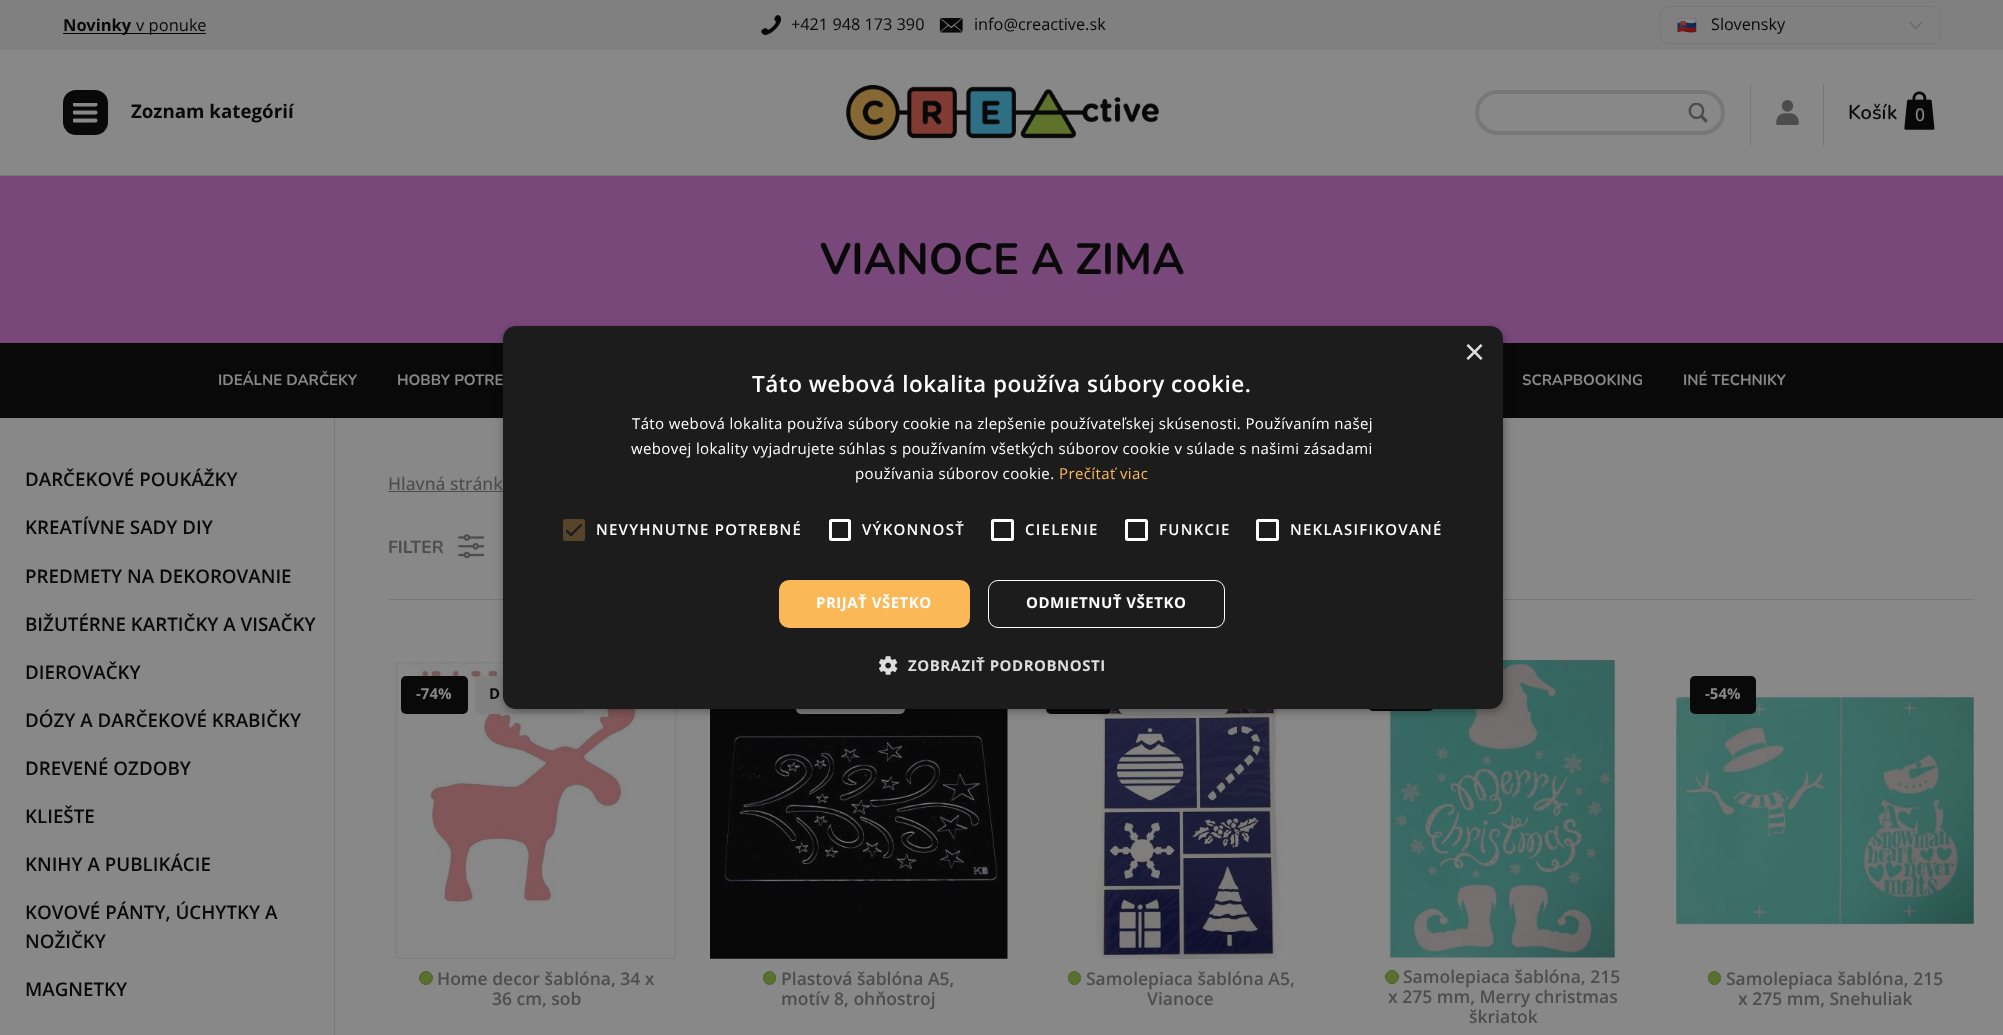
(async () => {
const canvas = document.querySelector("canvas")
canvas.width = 2003
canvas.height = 1035
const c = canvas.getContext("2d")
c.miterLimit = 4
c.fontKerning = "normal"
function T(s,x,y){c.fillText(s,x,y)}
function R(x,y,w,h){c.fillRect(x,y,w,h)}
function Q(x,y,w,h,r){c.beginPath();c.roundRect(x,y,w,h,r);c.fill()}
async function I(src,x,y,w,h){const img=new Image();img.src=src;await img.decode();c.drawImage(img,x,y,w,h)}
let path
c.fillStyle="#888"
R(0,0,2003,1035)
c.fillStyle="#808080"
R(0,0,2003,50)
c.fillStyle="#090909"
R(63,33,68,1)
c.font="bold 16.5px Open Sans"
T("Novinky",63,31)
R(131,33,75,1)
c.font="16.5px Open Sans"
T("v ponuke",136,31)
await I("1.png",761,15,20,20)
c.font="16.25px Open Sans"
T("+421 948 173 390",791,30)
await I("2.png",939,18,24,15)
T("info@creactive.sk",974,30)
c.beginPath()
c.roundRect(1660.5,6.5,280,37,7.5)
c.strokeStyle="#777"
c.stroke()
await I("3.png",1677,17,20,16)
T("Slovensky",1711,30)
path = new Path2D("M1921.5 22.5l-6 6l-5.5-6")
c.strokeStyle="#666"
c.lineWidth=1.2
c.lineCap="round"
c.lineJoin="round"
c.stroke(path)
c.fillStyle="#777"
R(0,175,2003,1)
c.fillStyle="#090909"
Q(63,90,45,45,13)
await I("4.png",73,103,25,20)
c.font="bold 18.75px Open Sans"
T("Zoznam kategórií",131,118)
await I("5.png",846,85,313,55)
c.beginPath()
c.roundRect(1477,92,246,41,20.5)
c.strokeStyle="#777"
c.lineWidth=4
c.lineJoin="miter"
c.stroke()
await I("6.png",1688,103,20,20)
c.fillStyle="#777"
R(1750,84,1,62)
await I("7.png",1776,100,23,25)
R(1823,84,1,62)
c.font="600 20px Nunito"
c.fillStyle="#090909"
T("Košík",1848,119)
await I("8.png",1904,91,31,39)
c.font="500 17.5px Open Sans"
c.fillStyle="#888"
T("0",1915,121)
c.fillStyle="#79487b"
R(0,176,2003,167)
c.font="bold 43.75px Nunito"
c.fillStyle="#090909"
T("VIANOCE A ZIMA",820,274)
R(0,343,2003,75)
c.font="bold 15px Nunito"
c.fillStyle="#888"
T("IDEÁLNE DARČEKY",218,385)
T("HOBBY POTRE",397,385)
T("SCRAPBOOKING",1522,385)
T("INÉ TECHNIKY",1683,385)
c.fillStyle="#4d4d4d"
R(388,491,115,1)
c.fillStyle="#777"
R(388,599,1586,1)
await I("11.png",393,662,286,297)
c.fillStyle="#808080"
Q(475,676,109,38,5)
await I("12.png",710,709,298,250)
Q(796,676,109,38,5)
await I("13.png",1096,709,185,250)
c.fillStyle="#090909"
Q(1046,676,65,38,5)
c.fillStyle="#808080"
Q(1119,676,109,38,5)
await I("14.png",1388,660,228,298)
c.fillStyle="#090909"
Q(1368,674,66,37,5)
c.fillStyle="#00000059"
c.filter="blur(5px)"
c.beginPath()
c.roundRect(504,329,1000,382,13)
c.fill()
c.filter="none"
c.fillStyle="#1c1c1c"
Q(503,326,1000,383,13)
c.font="36px Liberation Sans"
c.fillStyle="#ddd"
T("×",1464,364)
c.letterSpacing="0.5px"
c.font="600 22.5px 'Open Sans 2'"
c.fillStyle="#fff"
T("Táto webová lokalita používa súbory cookie.",752,392)
c.letterSpacing="0.38px"
c.font="15px 'Open Sans 2'"
T("Táto webová lokalita používa súbory cookie na zlepšenie používateľskej skúsenosti. Používaním našej",632,429)
T("webovej lokality vyjadrujete súhlas s používaním všetkých súborov cookie v súlade s našimi zásadami",631,454)
T("používania súborov cookie.",855,479)
c.fillStyle="#fbb857"
T("Prečítať viac",1059,479)
c.fillStyle="#56452b"
Q(563,519,22,22,2.5)
path = new Path2D("M566.5 530.5l4.5 4.5l10.5-10.5")
c.strokeStyle="#1c1c1c"
c.lineWidth=2.3
c.lineCap="butt"
c.stroke(path)
c.letterSpacing="1.25px"
c.font="600 15px 'Open Sans 2'"
c.fillStyle="#fff"
T("NEVYHNUTNE POTREBNÉ",596,535)
c.beginPath()
c.roundRect(830.5,520.5,19,19,1)
c.strokeStyle="#fff"
c.lineWidth=3
c.stroke()
T("VÝKONNOSŤ",862,535)
c.beginPath()
c.roundRect(992.5,520.5,20,19,1)
c.stroke()
T("CIELENIE",1025,535)
c.beginPath()
c.roundRect(1126.5,520.5,20,19,1)
c.stroke()
T("FUNKCIE",1159,535)
c.beginPath()
c.roundRect(1257.5,520.5,20,19,1)
c.stroke()
T("NEKLASIFIKOVANÉ",1290,535)
c.fillStyle="#fbb857"
Q(779,580,191,48,10)
c.letterSpacing="0.5px"
c.font="bold 15px 'Open Sans 2'"
c.fillStyle="#fff"
T("PRIJAŤ VŠETKO",816,608)
c.beginPath()
c.roundRect(988.5,580.5,236,47,9.5)
c.lineWidth=1
c.stroke()
T("ODMIETNUŤ VŠETKO",1026,608)
await I("9.png",879,656,19,19)
c.fillStyle="#ddd"
T("ZOBRAZIŤ PODROBNOSTI",908,671)
c.letterSpacing="0px"
c.font="600 18.75px Open Sans"
c.fillStyle="#090909"
T("DARČEKOVÉ POUKÁŽKY",25,486)
T("KREATÍVNE SADY DIY",25,534)
T("PREDMETY NA DEKOROVANIE",25,583)
T("BIŽUTÉRNE KARTIČKY A VISAČKY",25,631)
T("DIEROVAČKY",25,679)
T("DÓZY A DARČEKOVÉ KRABIČKY",25,727)
T("DREVENÉ OZDOBY",25,775)
T("KLIEŠTE",25,823)
T("KNIHY A PUBLIKÁCIE",25,871)
T("KOVOVÉ PÁNTY, ÚCHYTKY A",25,919)
T("NOŽIČKY",25,948)
T("MAGNETKY",25,996)
c.fillStyle="#777"
R(334,418,1,617)
c.font="500 17.5px Open Sans"
c.fillStyle="#4d4d4d"
T("Hlavná stránk",388,490)
c.font="bold 17.5px Nunito"
T("FILTER",388,553)
await I("10.png",458,534,27,25)
c.fillStyle="#090909"
Q(401,676,67,38,5)
c.font="bold 15px Open Sans"
c.fillStyle="#888"
T("-74%",416,699)
c.fillStyle="#090909"
T("D",489,699)
c.fillStyle="#5a702e"
c.beginPath()
c.arc(426,978,6.5,0,7)
c.fill()
c.strokeStyle="#4e6029"
c.stroke()
c.font="600 17.5px Open Sans"
c.fillStyle="#4d4d4d"
T("Home decor šablóna, 34 x",437,985)
T("36 cm, sob",492,1005)
c.fillStyle="#5a702e"
c.beginPath()
c.roundRect(763.5,971.5,12,13,6)
c.fill()
c.stroke()
c.fillStyle="#4d4d4d"
T("Plastová šablóna A5,",781,985)
T("motív 8, ohňostroj",781,1005)
c.fillStyle="#5a702e"
c.beginPath()
c.roundRect(1068.5,971.5,12,13,6)
c.fill()
c.stroke()
c.fillStyle="#4d4d4d"
T("Samolepiaca šablóna A5,",1086,985)
T("Vianoce",1147,1005)
c.fillStyle="#5a702e"
c.beginPath()
c.arc(1392,977,6.5,0,7)
c.fill()
c.stroke()
c.fillStyle="#4d4d4d"
T("Samolepiaca šablóna, 215",1403,983)
T("x 275 mm, Merry christmas",1388,1003)
T("škriatok",1469,1023)
await I("15.png",1676,694,298,232)
c.fillStyle="#090909"
Q(1690,676,66,38,5)
c.font="bold 15px Open Sans"
c.fillStyle="#888"
T("-54%",1705,699)
c.fillStyle="#5a702e"
c.beginPath()
c.roundRect(1708.5,971.5,12,13,6)
c.fill()
c.stroke()
c.font="600 17.5px Open Sans"
c.fillStyle="#4d4d4d"
T("Samolepiaca šablóna, 215",1726,985)
T("x 275 mm, Snehuliak",1738,1005)
})()
